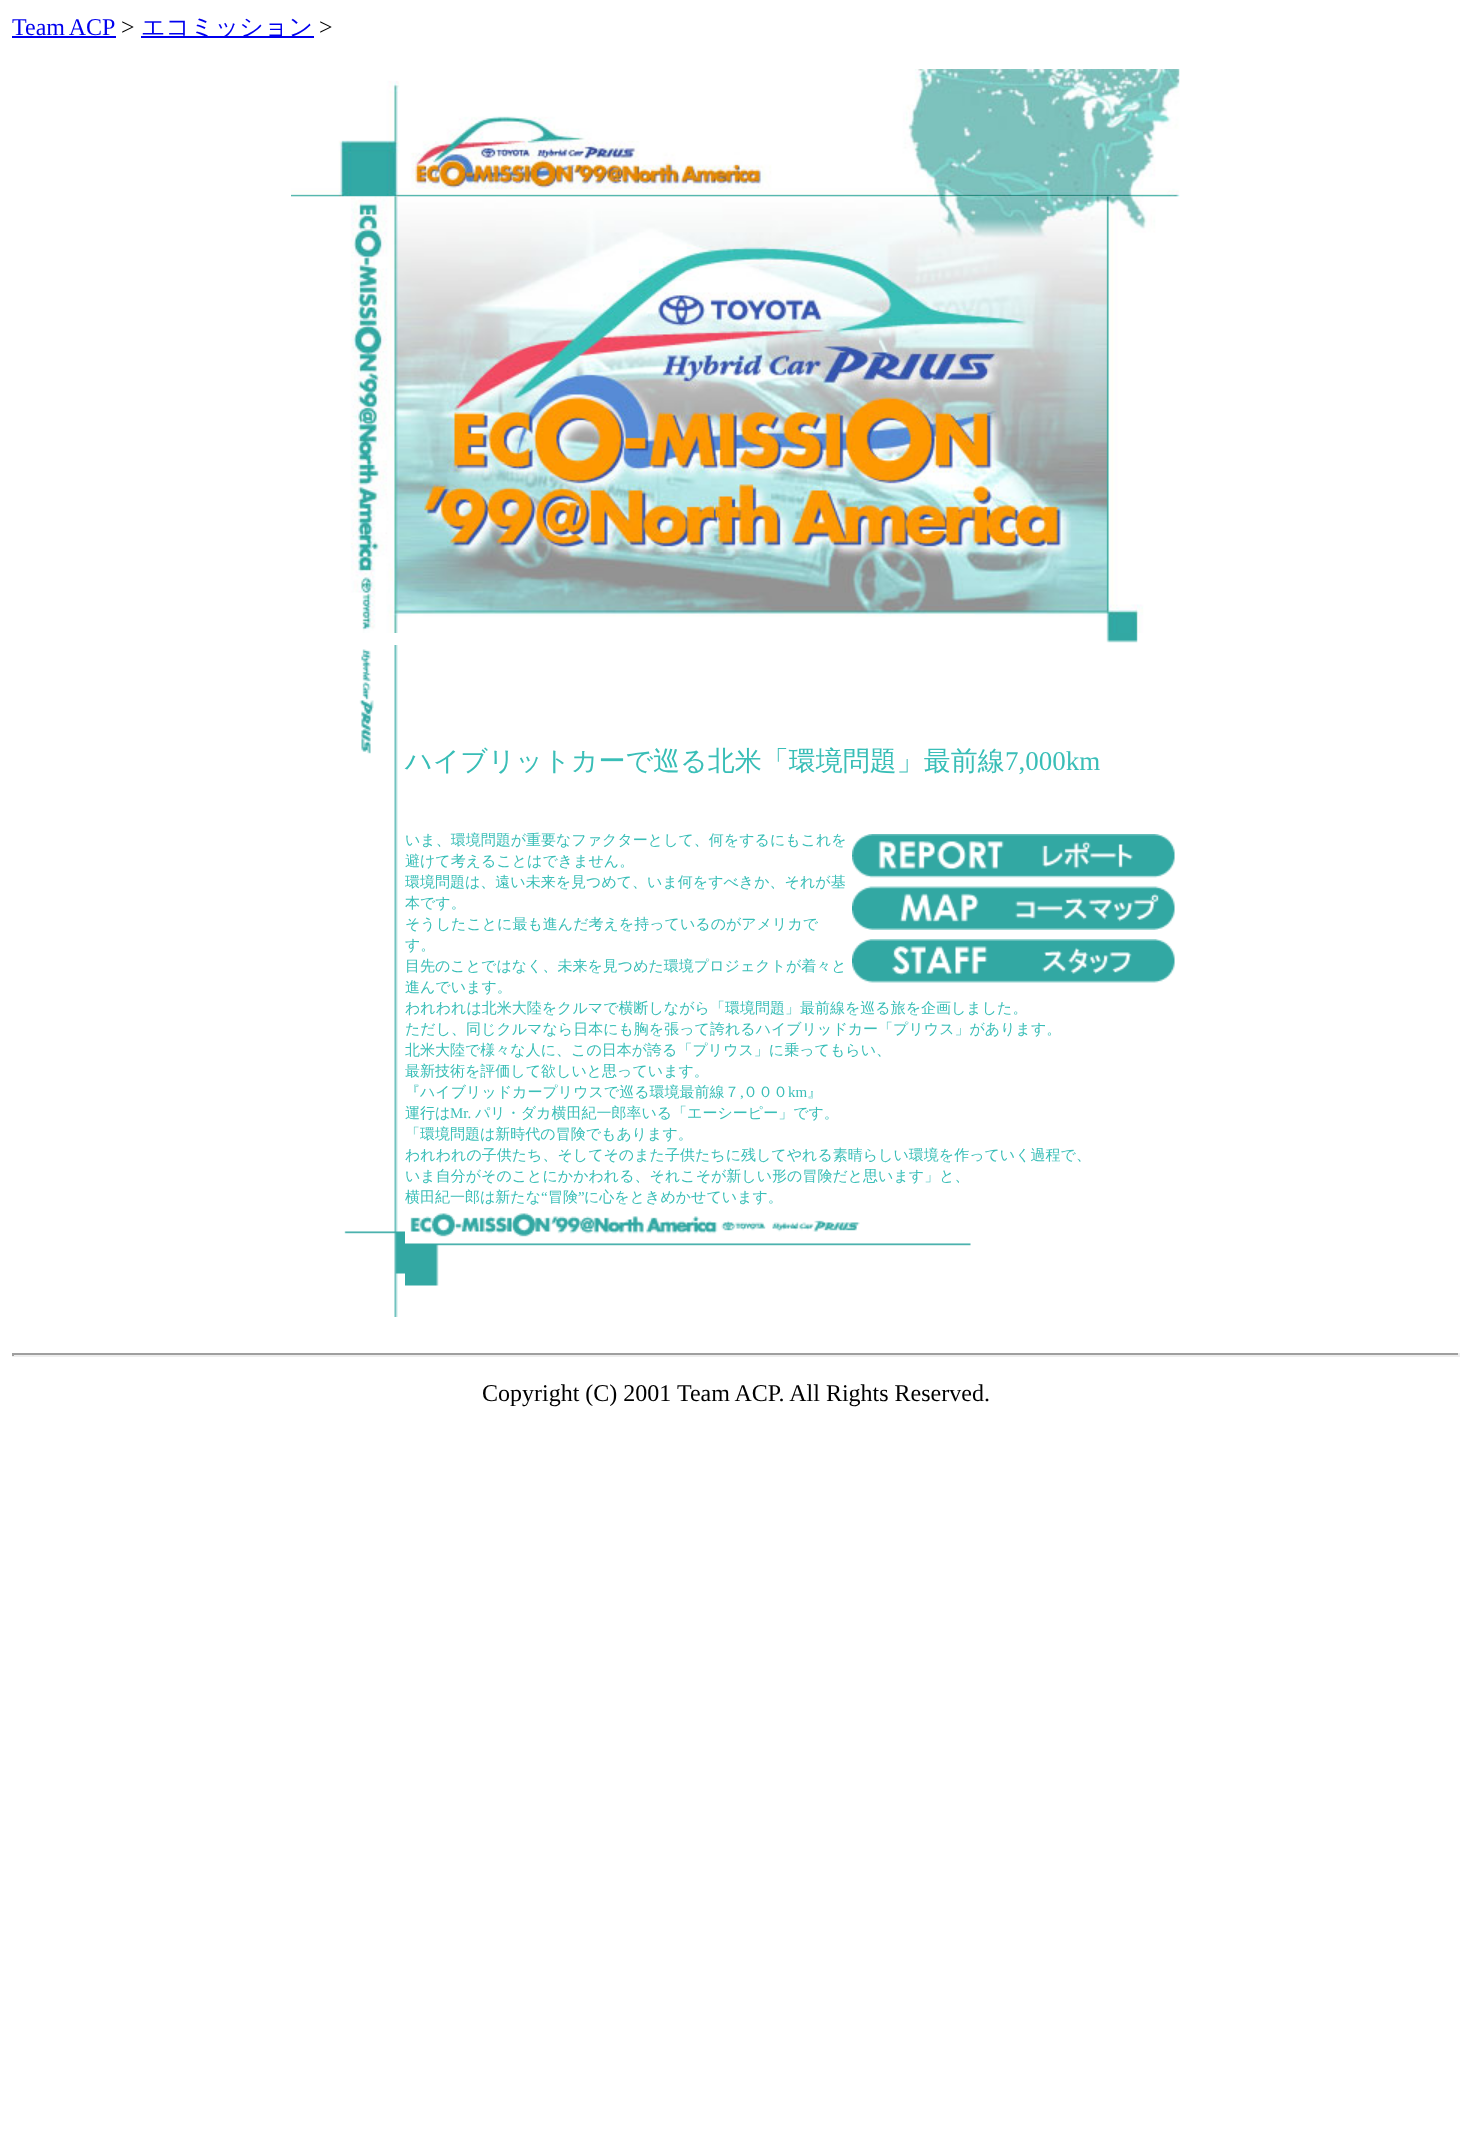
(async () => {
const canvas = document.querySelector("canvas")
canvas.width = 1471
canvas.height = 2132
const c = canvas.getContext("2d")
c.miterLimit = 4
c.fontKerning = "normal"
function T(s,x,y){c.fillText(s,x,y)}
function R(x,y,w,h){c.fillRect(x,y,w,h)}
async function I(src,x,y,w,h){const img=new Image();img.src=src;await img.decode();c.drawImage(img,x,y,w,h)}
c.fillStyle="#fff"
R(0,0,1471,2132)
c.wordSpacing="-1px"
c.font="24px Liberation Serif"
c.fillStyle="#00e"
T("Team ACP",12,35)
R(12,36,104,2)
c.wordSpacing="0px"
c.fillStyle="#000"
T(">",121,35)
c.fillStyle="#00e"
R(141,36,173,2)
c.font="500 24px WenQuanYi Zen Hei"
T("エコミッション",141,35)
c.font="24px Liberation Serif"
c.fillStyle="#000"
T(">",319,35)
await I("1.png",291,69,889,128)
await I("2.png",291,196,889,437)
await I("3.png",1106,633,32,10)
await I("4.png",344,645,61,672)
c.font="500 27px WenQuanYi Zen Hei"
c.fillStyle="#39beb7"
T("ハイブリットカーで巡る北米「環境問題」最前線",405,770)
c.font="27px Liberation Serif"
T("7,000km",1005,770)
c.font="500 15px WenQuanYi Zen Hei"
T("いま、環境問題が重要なファクターとして、何をするにもこれを",405,845)
T("避けて考えることはできません。",405,866)
T("環境問題は、遠い未来を見つめて、いま何をすべきか、それが基",405,887)
T("本です。",405,908)
T("そうしたことに最も進んだ考えを持っているのがアメリカで",405,929)
T("す。",405,950)
T("目先のことではなく、未来を見つめた環境プロジェクトが着々と",405,971)
T("進んでいます。",405,992)
T("われわれは北米大陸をクルマで横断しながら「環境問題」最前線を巡る旅を企画しました。",405,1013)
T("ただし、同じクルマなら日本にも胸を張って誇れるハイブリッドカー「プリウス」があります。",405,1034)
T("北米大陸で様々な人に、この日本が誇る「プリウス」に乗ってもらい、",405,1055)
T("最新技術を評価して欲しいと思っています。",405,1076)
T("『ハイブリッドカープリウスで巡る環境最前線７",405,1097)
c.font="15px Liberation Serif"
T(",",740,1097)
c.font="500 15px WenQuanYi Zen Hei"
T("０００",743,1097)
c.font="15px Liberation Serif"
T("km",788,1097)
c.font="500 15px WenQuanYi Zen Hei"
T("』",807,1097)
T("運行は",405,1118)
c.font="15px Liberation Serif"
T("Mr.",450,1118)
c.font="500 15px WenQuanYi Zen Hei"
T("パリ・ダカ横田紀一郎率いる「エーシーピー」です。",475,1118)
T("「環境問題は新時代の冒険でもあります。",405,1139)
T("われわれの子供たち、そしてそのまた子供たちに残してやれる素晴らしい環境を作っていく過程で、",405,1160)
T("いま自分がそのことにかかわれる、それこそが新しい形の冒険だと思います」と、",405,1181)
T("横田紀一郎は新たな",405,1202)
c.font="15px Liberation Serif"
T("“",541,1202)
c.font="500 15px WenQuanYi Zen Hei"
T("冒険",548,1202)
c.font="15px Liberation Serif"
T("”",578,1202)
c.font="500 15px WenQuanYi Zen Hei"
T("に心をときめかせています。",584,1202)
await I("5.png",852,834,323,44)
await I("6.png",852,886,323,44)
await I("7.png",852,939,323,44)
await I("8.png",405,1213,566,73)
c.fillStyle="#9f9f9f"
R(12,1353,1448,2)
c.fillStyle="#eee"
R(1458,1353,2,3)
R(12,1355,1448,2)
c.fillStyle="#9f9f9f"
R(12,1353,2,3)
c.font="24px Liberation Serif"
c.fillStyle="#000"
T("Copyright (C) 2001 Team ACP. All Rights Reserved.",482,1401)
})()
